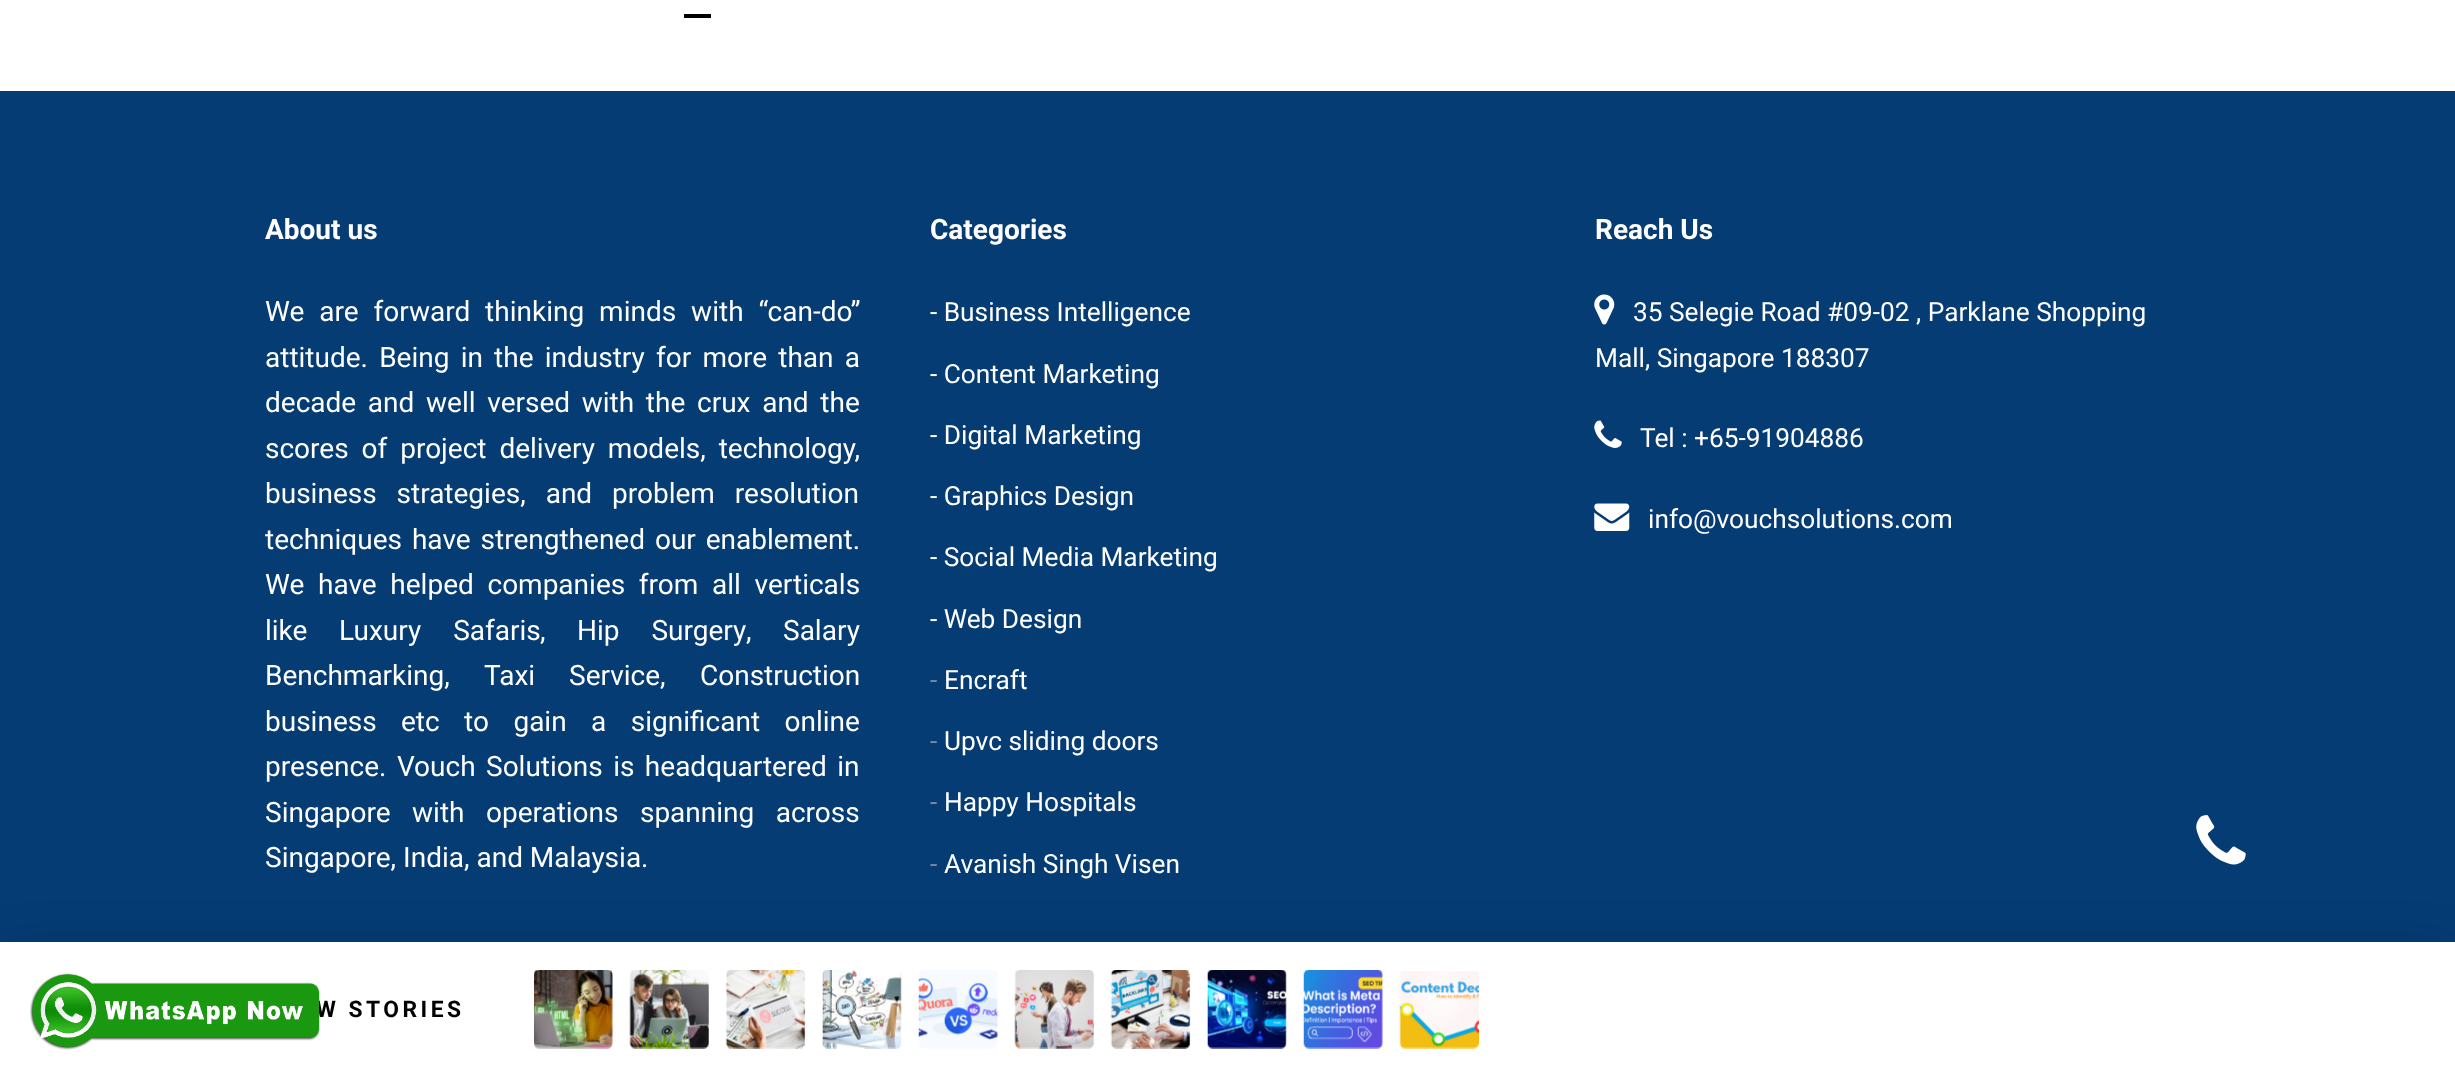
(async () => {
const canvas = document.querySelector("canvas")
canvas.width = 2455
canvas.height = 1075
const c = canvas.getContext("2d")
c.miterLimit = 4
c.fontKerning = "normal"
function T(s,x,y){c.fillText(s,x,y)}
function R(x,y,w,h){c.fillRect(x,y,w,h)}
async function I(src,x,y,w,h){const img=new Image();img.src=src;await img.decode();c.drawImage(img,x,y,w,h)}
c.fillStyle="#fff"
R(0,0,2455,1075)
c.fillStyle="#000"
R(684,14,27,4)
c.fillStyle="#053c74"
R(0,91,2455,851)
c.font="bold 28px Roboto"
c.fillStyle="#fff"
T("About us",265,239)
c.wordSpacing="8px"
c.font="28px Roboto"
T("We are forward thinking minds with “can-do”",265,321)
c.wordSpacing="4.25px"
T("attitude. Being in the industry for more than a",265,367)
c.wordSpacing="4.75px"
T("decade and well versed with the crux and the",265,412)
c.wordSpacing="6px"
T("scores of project delivery models, technology,",265,458)
c.wordSpacing="13px"
T("business strategies, and problem resolution",265,503)
c.wordSpacing="3px"
T("techniques have strengthened our enablement.",265,549)
c.wordSpacing="6.75px"
T("We have helped companies from all verticals",265,594)
c.wordSpacing="0px"
T("like",265,640)
c.wordSpacing="25px"
T("Luxury Safaris",339,640)
c.wordSpacing="0px"
T(",",540,640)
c.wordSpacing="25px"
T("Hip Surgery",577,640)
c.wordSpacing="0px"
T(",",746,640)
T("Salary",783,640)
T("Benchmarking,",265,685)
c.wordSpacing="27px"
T("Taxi Service",484,685)
c.wordSpacing="0px"
T(",",660,685)
T("Construction",700,685)
T("business",265,731)
c.wordSpacing="17.5px"
T("etc to gain a significant online",401,731)
c.wordSpacing="3.5px"
T("presence. Vouch Solutions is headquartered in",265,776)
c.wordSpacing="14.5px"
T("Singapore with operations spanning across",265,822)
c.wordSpacing="0px"
T("Singapore, India, and Malaysia.",265,867)
c.font="bold 28px Roboto"
T("Categories",930,239)
c.font="26.25px Roboto"
T("- Business Intelligence",930,321)
T("- Content Marketing",930,383)
T("- Digital Marketing",930,444)
T("- Graphics Design",930,505)
T("- Social Media Marketing",930,566)
T("- Web Design",930,628)
c.fillStyle="#7f899b"
T("-",930,689)
c.fillStyle="#fff"
T("Encraft",944,689)
c.fillStyle="#7f899b"
T("-",930,750)
c.fillStyle="#fff"
T("Upvc sliding doors",944,750)
c.fillStyle="#7f899b"
T("-",930,811)
c.fillStyle="#fff"
T("Happy Hospitals",944,811)
c.fillStyle="#7f899b"
T("-",930,873)
c.fillStyle="#fff"
T("Avanish Singh Visen",944,873)
c.font="bold 28px Roboto"
T("Reach Us",1595,239)
await I("1.png",1594,294,21,31)
c.font="26.25px Roboto"
T("35 Selegie Road #09-02 , Parklane Shopping",1633,321)
T("Mall, Singapore 188307",1595,367)
await I("2.png",1594,420,28,28)
T("Tel : +65-91904886",1640,447)
await I("3.png",1594,503,36,28)
T("info@vouchsolutions.com",1648,528)
await I("4.png",2196,815,50,50)
c.fillStyle="#0000001a"
c.filter="blur(22px)"
c.beginPath()
c.rect(0,942,2455,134)
c.fill()
c.filter="none"
c.fillStyle="#fff"
R(0,942,2455,133)
c.letterSpacing="3.5px"
c.font="bold 22.75px Roboto"
c.fillStyle="#000"
T("W STORIES",316,1017)
await I("5.png",30,973,290,77)
await I("6.png",534,970,79,79)
await I("7.png",629,970,80,79)
await I("8.png",725,970,81,79)
await I("9.png",822,970,80,79)
await I("10.png",918,970,80,79)
await I("11.png",1014,970,80,79)
await I("12.png",1110,970,81,79)
await I("13.png",1207,970,80,79)
await I("14.png",1303,970,80,79)
await I("15.png",1399,971,80,78)
})()
